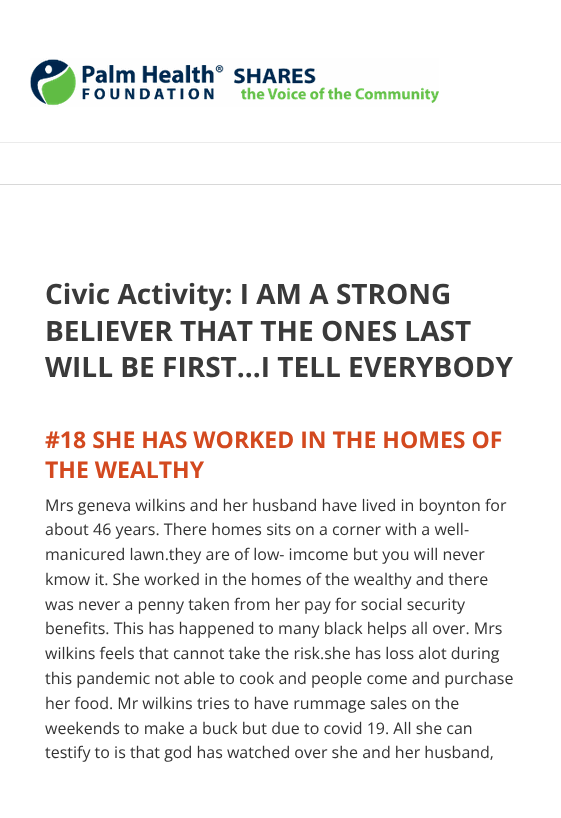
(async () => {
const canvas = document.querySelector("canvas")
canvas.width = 561
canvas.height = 818
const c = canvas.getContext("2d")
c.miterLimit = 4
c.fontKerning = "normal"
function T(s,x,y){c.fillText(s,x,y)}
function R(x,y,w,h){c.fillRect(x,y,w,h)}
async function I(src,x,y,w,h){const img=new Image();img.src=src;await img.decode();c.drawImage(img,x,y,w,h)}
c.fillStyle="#fff"
R(0,0,561,818)
await I("1.png",30,58,409,49)
c.fillStyle="#ebebeb"
R(0,142,561,1)
c.fillStyle="#d8d8d8"
R(0,184,561,1)
c.font="bold 28px Open Sans"
c.fillStyle="#3a3a3a"
T("Civic Activity: I AM A STRONG",45,304)
T("BELIEVER THAT THE ONES LAST",45,341)
T("WILL BE FIRST...I TELL EVERYBODY",45,377)
c.font="bold 23px Open Sans"
c.fillStyle="#d3491f"
T("#18 SHE HAS WORKED IN THE HOMES OF",45,448)
T("THE WEALTHY",45,478)
c.font="16px Open Sans"
c.fillStyle="#333"
T("Mrs geneva wilkins and her husband have lived in boynton for",45,511)
T("about 46 years. There homes sits on a corner with a well-",45,535)
T("manicured lawn.they are of low- imcome but you will never",45,560)
T("kmow it. She worked in the homes of the wealthy and there",45,585)
T("was never a penny taken from her pay for social security",45,610)
T("benefits. This has happened to many black helps all over. Mrs",45,634)
T("wilkins feels that cannot take the risk.she has loss alot during",45,659)
T("this pandemic not able to cook and people come and purchase",45,684)
T("her food. Mr wilkins tries to have rummage sales on the",45,709)
T("weekends to make a buck but due to covid 19. All she can",45,734)
T("testify to is that god has watched over she and her husband,",45,758)
})()
